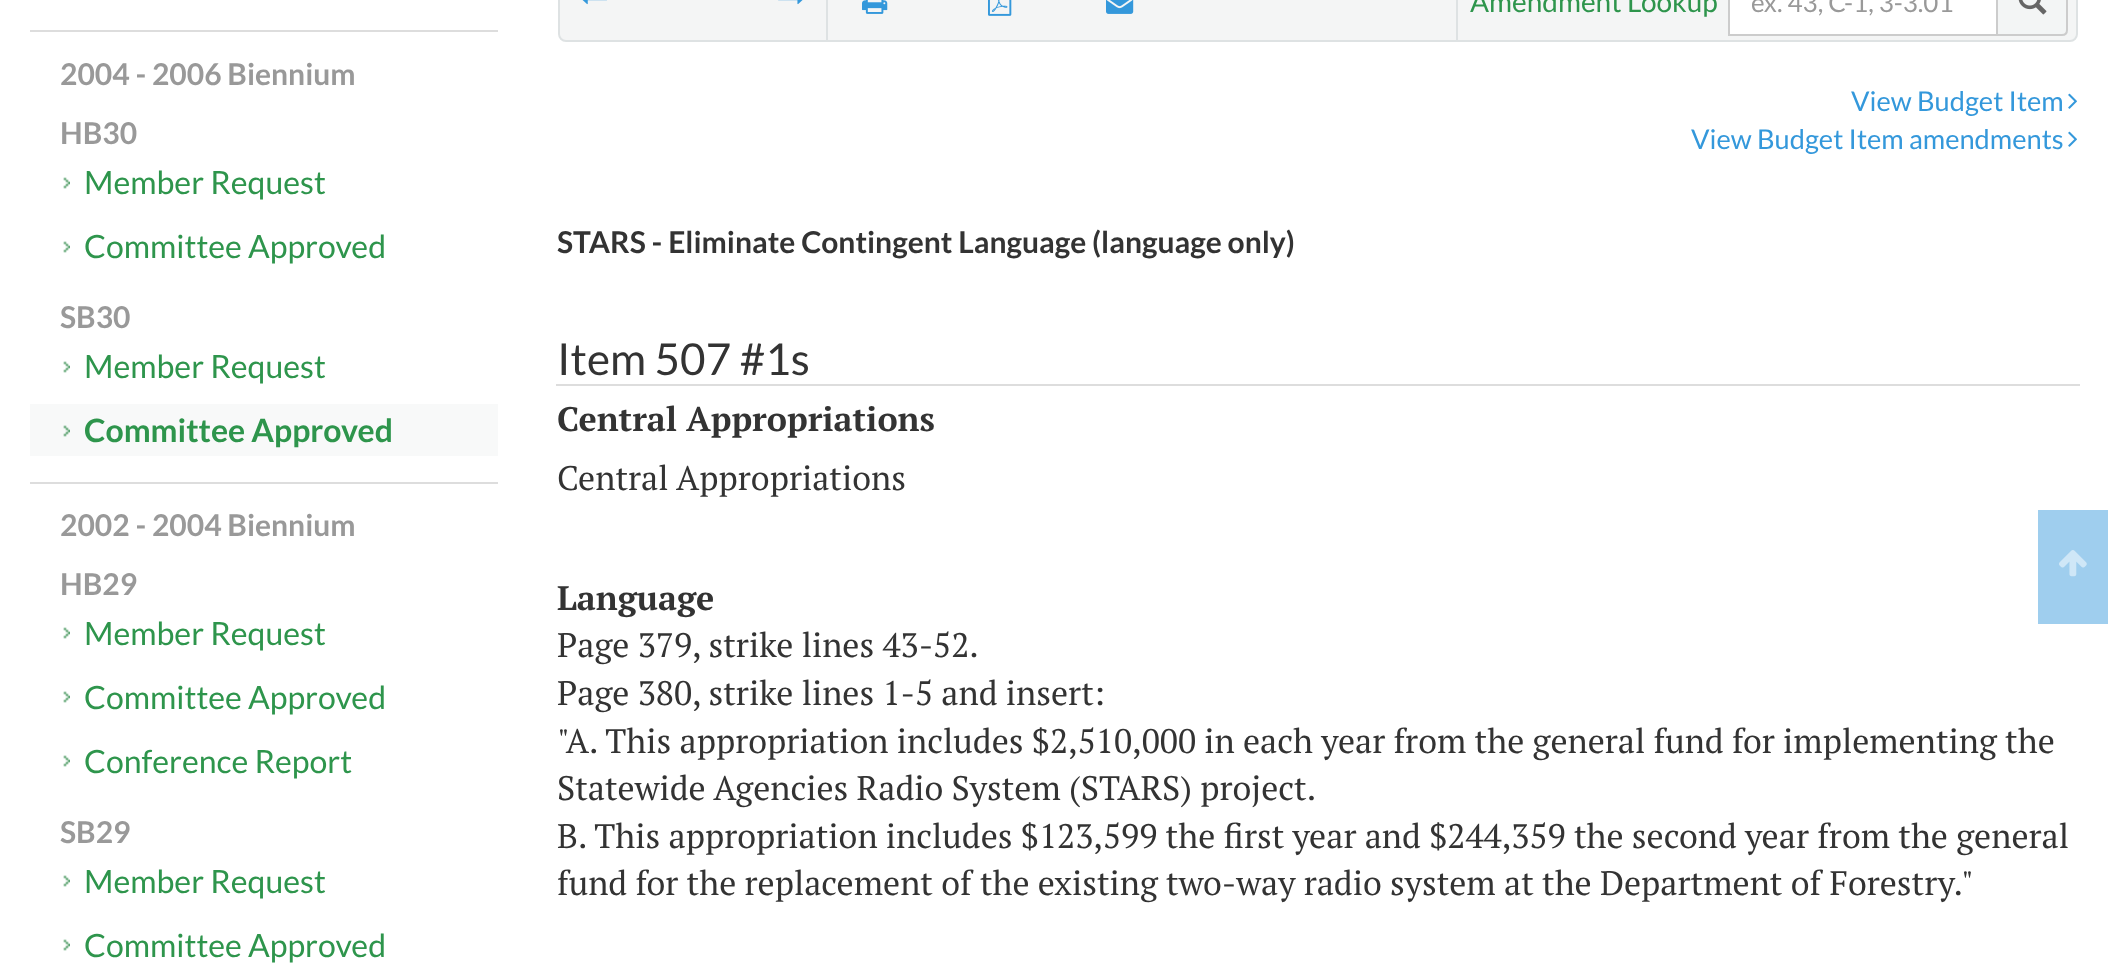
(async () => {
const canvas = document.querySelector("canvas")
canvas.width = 2108
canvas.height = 973
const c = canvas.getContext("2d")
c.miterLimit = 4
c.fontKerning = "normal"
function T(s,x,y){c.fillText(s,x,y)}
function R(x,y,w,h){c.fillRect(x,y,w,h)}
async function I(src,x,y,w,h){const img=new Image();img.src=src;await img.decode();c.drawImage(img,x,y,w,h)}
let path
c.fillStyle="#fff"
R(0,0,2108,973)
c.fillStyle="#ddd"
R(30,30,468,2)
c.font="bold 30px Lato"
c.fillStyle="#999"
T("2004 - 2006 Biennium",60,85)
T("HB30",60,144)
await I("1.png",63,177,7,12)
c.font="32px Lato"
c.fillStyle="#2e954c"
T("Member Request",84,194)
await I("1.png",63,241,7,12)
T("Committee Approved",84,258)
c.font="bold 30px Lato"
c.fillStyle="#999"
T("SB30",60,328)
await I("1.png",63,361,7,12)
c.font="32px Lato"
c.fillStyle="#2e954c"
T("Member Request",84,378)
c.fillStyle="#f8f9f9"
R(30,404,468,52)
await I("2.png",63,425,7,12)
c.font="bold 32px Lato"
c.fillStyle="#2e954c"
T("Committee Approved",84,442)
c.fillStyle="#ddd"
R(30,482,468,2)
c.font="bold 30px Lato"
c.fillStyle="#999"
T("2002 - 2004 Biennium",60,536)
T("HB29",60,595)
await I("1.png",63,627,7,12)
c.font="32px Lato"
c.fillStyle="#2e954c"
T("Member Request",84,645)
await I("1.png",63,691,7,12)
T("Committee Approved",84,709)
await I("1.png",63,755,7,12)
T("Conference Report",84,773)
c.font="bold 30px Lato"
c.fillStyle="#999"
T("SB29",60,843)
await I("1.png",63,875,7,12)
c.font="32px Lato"
c.fillStyle="#2e954c"
T("Member Request",84,893)
await I("1.png",63,939,7,12)
T("Committee Approved",84,957)
c.fillStyle="#f4f5f5"
c.beginPath()
c.roundRect(559,-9,1518,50,7)
c.fill()
c.strokeStyle="#dee2e3"
c.lineWidth=2
c.stroke()
c.fillStyle="#dee2e3"
R(826,0,2,40)
await I("3.png",582,0,25,5)
await I("4.png",778,0,25,5)
await I("5.png",862,0,26,14)
await I("6.png",988,0,24,16)
await I("7.png",1106,0,28,14)
R(1456,0,2,40)
c.font="28px Lato"
c.fillStyle="#2e954c"
T("Amendment Lookup",1470,12)
c.fillStyle="#fff"
c.beginPath()
c.rect(1729,-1,268,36)
c.fill()
c.strokeStyle="#ccc"
c.stroke()
c.font="26px Lato"
c.fillStyle="#999"
T("ex. 43, C-1, 3-3.01",1751,12)
c.fillStyle="#f3f5f5"
path = new Path2D("M1997-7h65c3 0 5 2 5 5v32c0 3-2 5-5 5h-65z")
c.fill(path)
c.stroke(path)
await I("8.png",2018,0,29,15)
c.font="27.25px Lato"
c.fillStyle="#3498db"
T("View Budget Item",1851,111)
await I("9.png",2068,93,9,16)
T("View Budget Item amendments",1691,149)
await I("9.png",2068,131,9,16)
c.font="bold 30px Lato"
c.fillStyle="#333"
T("STARS - Eliminate Contingent Language (language only)",557,253)
c.font="44px Lato"
T("Item 507 #1s",557,375)
c.fillStyle="#ddd"
R(556,384,1524,2)
c.font="bold 34px PT Serif"
c.fillStyle="#333"
T("Central Appropriations",557,431)
c.font="34px PT Serif"
T("Central Appropriations",557,490)
c.font="bold 34px PT Serif"
T("Language",557,610)
c.font="34px PT Serif"
T("Page 379, strike lines 43-52.",557,657)
T("Page 380, strike lines 1-5 and insert:",557,705)
T("\"A. This appropriation includes $2,510,000 in each year from the general fund for implementing the",557,753)
T("Statewide Agencies Radio System (STARS) project.",557,800)
T("B. This appropriation includes $123,599 the first year and $244,359 the second year from the general",557,848)
T("fund for the replacement of the existing two-way radio system at the Department of Forestry.\"",557,895)
c.fillStyle="#9fceee"
R(2038,510,70,114)
await I("10.png",2059,550,28,27)
})()
